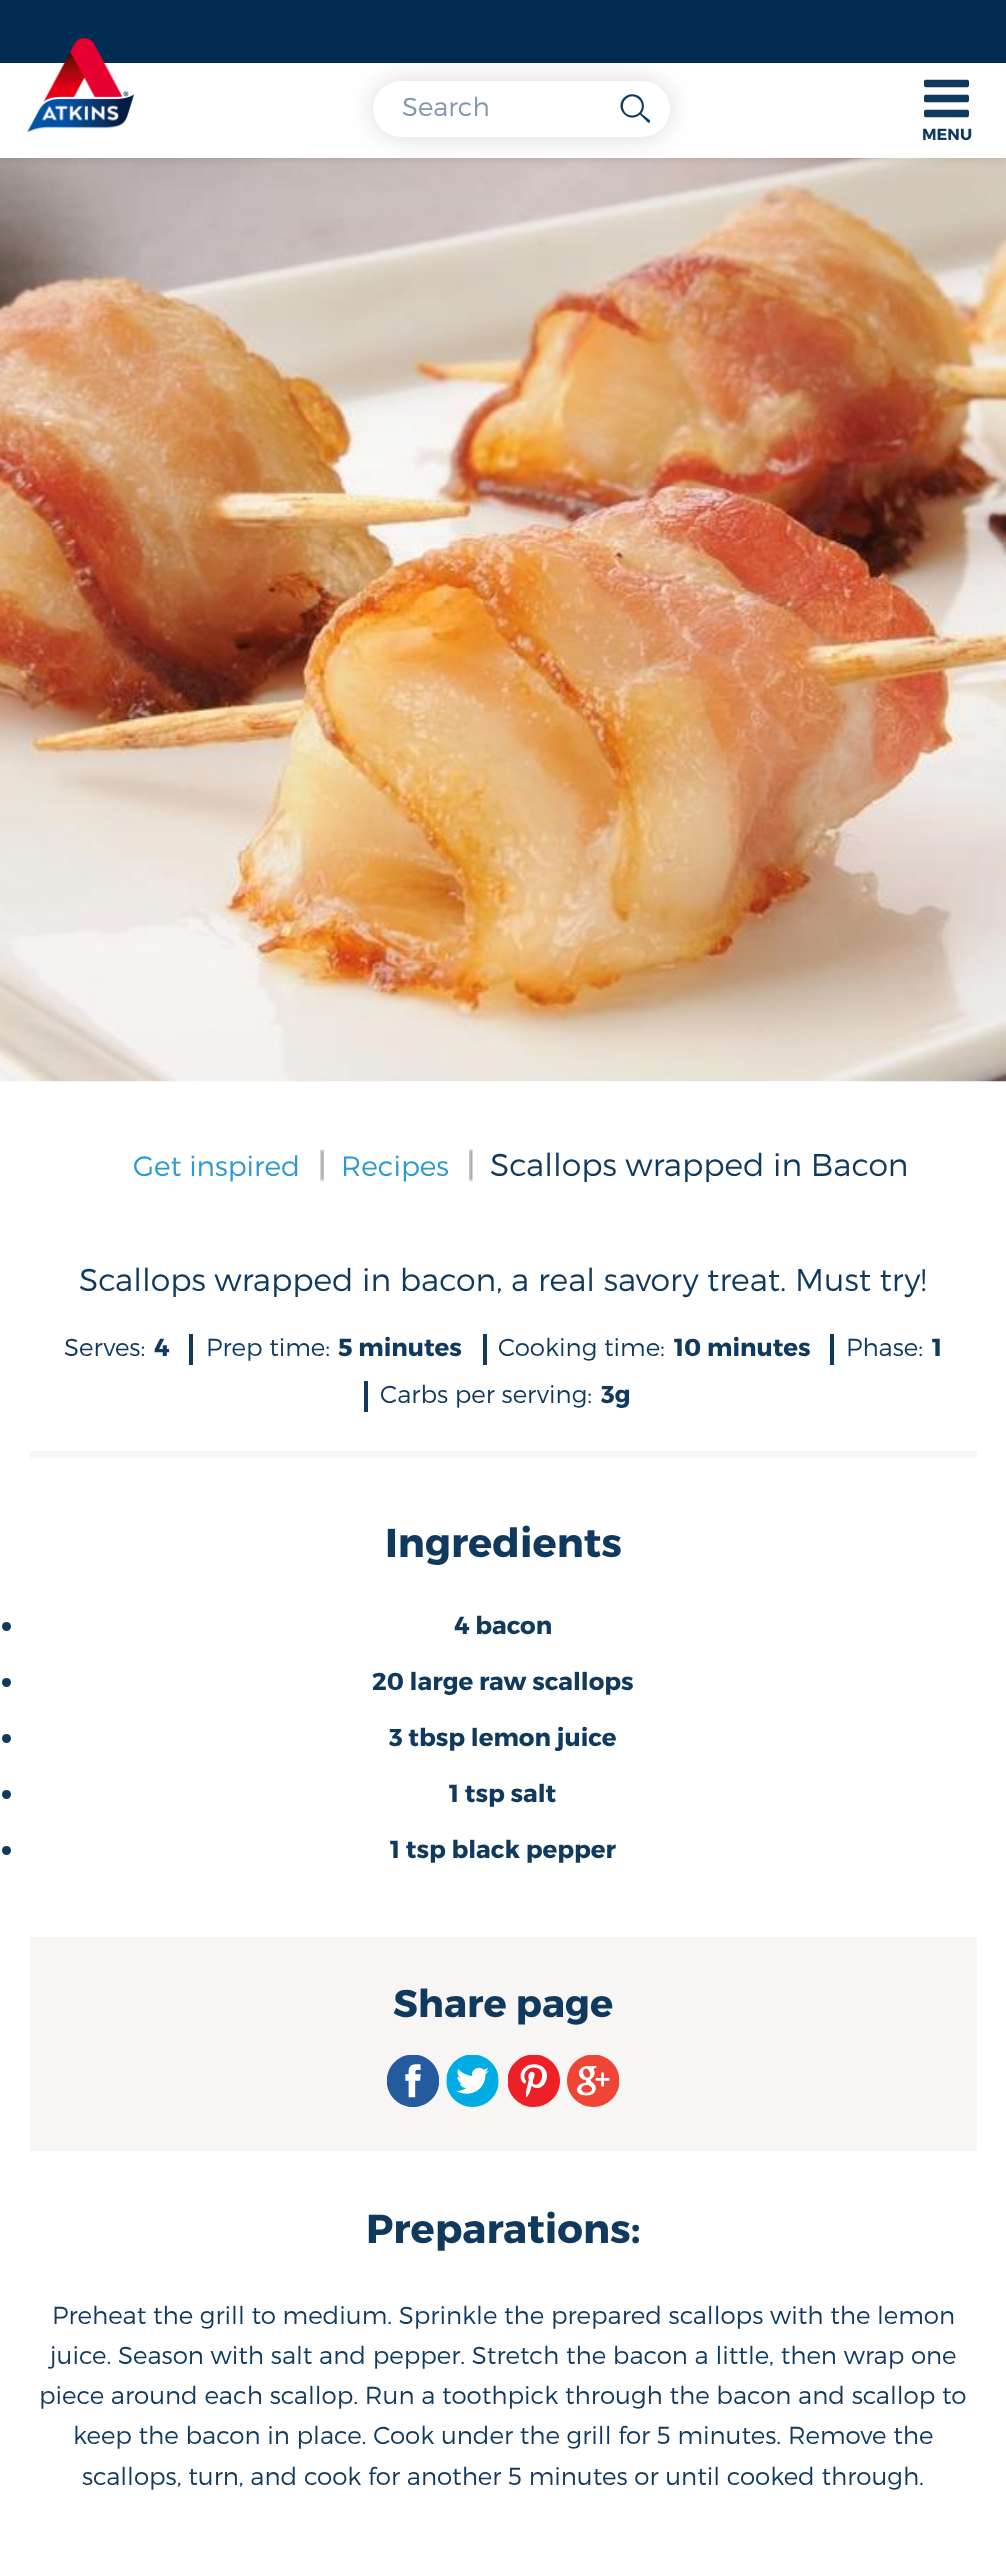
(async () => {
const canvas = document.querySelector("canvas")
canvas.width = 1006
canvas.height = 2549
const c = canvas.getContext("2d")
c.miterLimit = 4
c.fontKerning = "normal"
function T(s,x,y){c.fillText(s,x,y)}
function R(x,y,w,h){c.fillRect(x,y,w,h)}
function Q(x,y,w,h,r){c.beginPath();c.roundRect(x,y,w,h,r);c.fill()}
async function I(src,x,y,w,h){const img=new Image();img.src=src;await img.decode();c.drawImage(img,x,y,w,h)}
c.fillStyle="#fff"
R(0,0,1006,2549)
await I("4.png",0,158,1006,924)
c.fillStyle="#00000026"
c.filter="blur(5px)"
c.beginPath()
c.rect(0,0,1006,158)
c.fill()
c.filter="none"
c.fillStyle="#012d55"
R(0,0,1006,63)
c.fillStyle="#fff"
R(0,63,1006,95)
await I("1.png",27,37,108,96)
c.fillStyle="#00000026"
c.filter="blur(13px)"
c.beginPath()
c.roundRect(373,81,297,56,28)
c.fill()
c.filter="none"
c.fillStyle="#fff"
Q(373,81,297,56,28)
c.font="300 26px Montserrat"
c.fillStyle="#8096aa"
T("Search",402,116)
await I("2.png",620,94,31,29)
await I("3.png",924,79,45,39)
c.font="bold 16px Montserrat"
c.fillStyle="#10395e"
T("MENU",922,140)
c.font="300 28px Montserrat"
c.fillStyle="#2c99d3"
T("Get inspired",133,1176)
await I("5.png",320,1149,4,33)
T("Recipes",341,1176)
await I("6.png",469,1149,4,33)
c.font="300 31.5px Montserrat"
c.fillStyle="#10395e"
T("Scallops wrapped in Bacon",490,1176)
T("Scallops wrapped in bacon, a real savory treat. Must try!",79,1291)
c.font="300 24.5px Montserrat"
T("Serves:",64,1356)
c.font="bold 24.5px Montserrat"
T("4",154,1356)
R(189,1334,4,31)
c.font="300 24.5px Montserrat"
T("Prep time:",206,1356)
c.font="bold 24.5px Montserrat"
T("5 minutes",338,1356)
R(483,1334,4,31)
c.font="300 24.5px Montserrat"
T("Cooking time:",498,1356)
c.font="bold 24.5px Montserrat"
T("10 minutes",674,1356)
R(830,1334,4,31)
c.font="300 24.5px Montserrat"
T("Phase:",846,1356)
c.font="bold 24.5px Montserrat"
T("1",932,1356)
R(364,1381,4,31)
c.font="300 24.5px Montserrat"
T("Carbs per serving:",380,1403)
c.font="bold 24.5px Montserrat"
T("3g",601,1403)
c.fillStyle="#f7f6f5"
R(30,1451,947,7)
c.font="bold 40.25px Montserrat"
c.fillStyle="#10395e"
T("Ingredients",385,1557)
c.beginPath()
c.arc(6.5,1626.5,4.5,0,7)
c.fill()
c.font="bold 24.5px Montserrat"
T("4 bacon",454,1634)
c.beginPath()
c.arc(6.5,1682.5,4.5,0,7)
c.fill()
T("20 large raw scallops",372,1690)
c.beginPath()
c.arc(6.5,1738.5,4.5,0,7)
c.fill()
T("3 tbsp lemon juice",389,1746)
c.beginPath()
c.arc(6.5,1794.5,4.5,0,7)
c.fill()
T("1 tsp salt",449,1802)
c.beginPath()
c.arc(6.5,1850.5,4.5,0,7)
c.fill()
T("1 tsp black pepper",390,1858)
c.fillStyle="#f7f6f5"
R(30,1937,947,214)
c.font="bold 38.5px Montserrat"
c.fillStyle="#10395e"
T("Share page",393,2017)
await I("7.png",387,2055,52,52)
await I("8.png",446,2055,53,52)
await I("9.png",508,2055,52,52)
await I("10.png",567,2055,53,52)
c.font="bold 40.25px Montserrat"
T("Preparations:",366,2243)
c.font="300 24.5px Montserrat"
T("Preheat the grill to medium. Sprinkle the prepared scallops with the lemon",52,2324)
T("juice. Season with salt and pepper. Stretch the bacon a little, then wrap one",50,2364)
T("piece around each scallop. Run a toothpick through the bacon and scallop to",39,2404)
T("keep the bacon in place. Cook under the grill for 5 minutes. Remove the",73,2444)
T("scallops, turn, and cook for another 5 minutes or until cooked through.",82,2485)
})()
